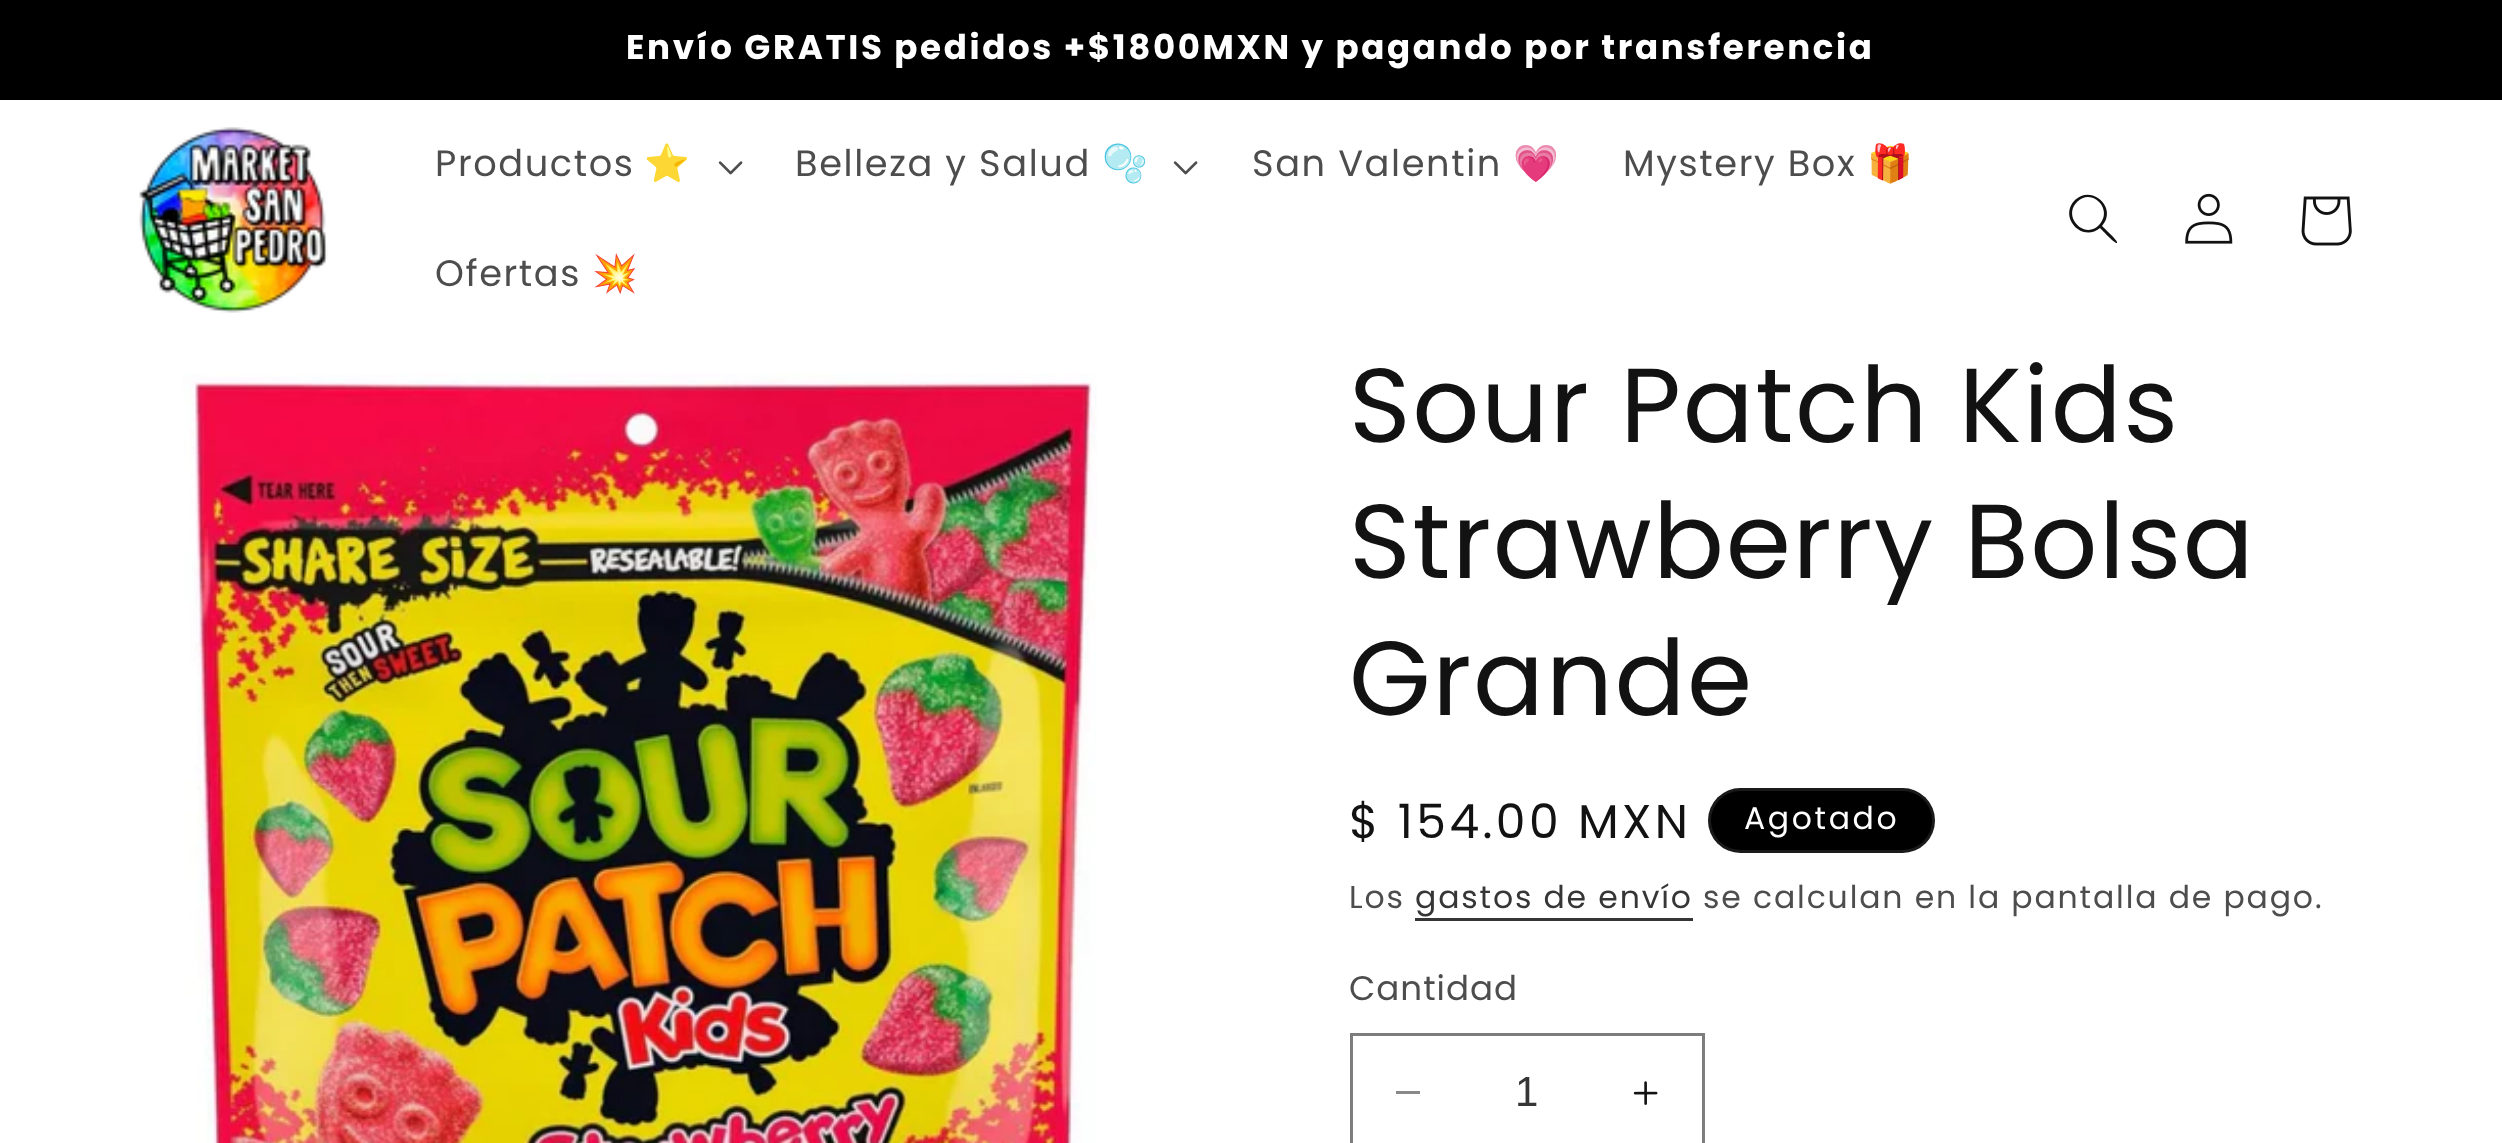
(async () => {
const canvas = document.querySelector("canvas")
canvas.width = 2502
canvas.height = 1143
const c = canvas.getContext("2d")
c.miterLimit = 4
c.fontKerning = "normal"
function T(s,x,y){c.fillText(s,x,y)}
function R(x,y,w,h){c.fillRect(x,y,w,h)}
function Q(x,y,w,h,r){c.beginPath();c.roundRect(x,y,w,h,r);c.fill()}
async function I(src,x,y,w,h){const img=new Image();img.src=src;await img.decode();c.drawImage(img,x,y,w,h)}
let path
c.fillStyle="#fff"
R(0,0,2502,1143)
c.fillStyle="#000"
R(0,0,2502,100)
c.letterSpacing="2.62px"
c.font="bold 34.1px Poppins"
c.fillStyle="#fff"
T("Envío GRATIS pedidos +$1800MXN y pagando por transferencia",626,59)
await I("1.png",139,127,189,186)
c.letterSpacing="1.6px"
c.font="36.75px Poppins"
c.fillStyle="#4d4d4d"
T("Productos",435,176)
c.font="36.75px Noto Color Emoji"
T("⭐️",644,176)
await I("2.png",718,161,25,14)
c.font="36.75px Poppins"
T("Belleza y Salud",795,176)
c.font="36.75px Noto Color Emoji"
T("🫧",1102,176)
await I("2.png",1173,161,25,14)
c.font="36.75px Poppins"
T("San Valentin",1252,176)
c.font="36.75px Noto Color Emoji"
T("💗",1513,176)
c.font="36.75px Poppins"
T("Mystery Box",1623,176)
c.font="36.75px Noto Color Emoji"
T("🎁",1867,176)
c.font="36.75px Poppins"
T("Ofertas",435,286)
c.font="36.75px Noto Color Emoji"
T("💥",592,286)
c.fillStyle="#121212"
path = new Path2D("M2099 225c-14 15-37-8-22-23c15-15 37 8 22 23zm1 3c-18 15-42-11-25-28c17-16 43 8 27 26c2 2 15 14 15 16v1c-2 1-15-13-17-15z")
c.fill(path,"evenodd")
await I("3.png",2185,193,48,51)
await I("4.png",2301,196,51,50)
await I("5.png",183,373,914,770)
c.font="105px Poppins"
T("Sour Patch Kids",1349,442)
T("Strawberry Bolsa",1349,578)
T("Grande",1349,715)
c.letterSpacing="3.4px"
c.font="47.25px Poppins"
T("$ 154.00 MXN",1349,838)
c.fillStyle="#000"
Q(1708,788,227,65,32.5)
c.beginPath()
c.roundRect(1709.5,789.5,224,62,31)
c.strokeStyle="#ffffff1a"
c.lineWidth=3
c.stroke()
c.letterSpacing="2.62px"
c.font="31.5px Poppins"
c.fillStyle="#fff"
T("Agotado",1744,829)
c.letterSpacing="1.85px"
c.fillStyle="#4d4d4d"
T("Los",1349,908)
c.fillStyle="#363636"
T("gastos de envío",1415,908)
R(1415,918,278,3)
c.fillStyle="#4d4d4d"
T("se calculan en la pantalla de pago.",1703,908)
c.letterSpacing="1px"
c.font="34.1px Poppins"
T("Cantidad",1349,1000)
c.fillStyle="#898989"
R(1396,1091,24,3)
await I("6.png",1633,1081,25,24)
c.strokeStyle="#7d7d7d"
c.strokeRect(1351.5,1034.5,352,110)
c.letterSpacing="0px"
c.font="42px Liberation Sans"
c.fillStyle="#363636"
T("1",1515,1106)
})()
